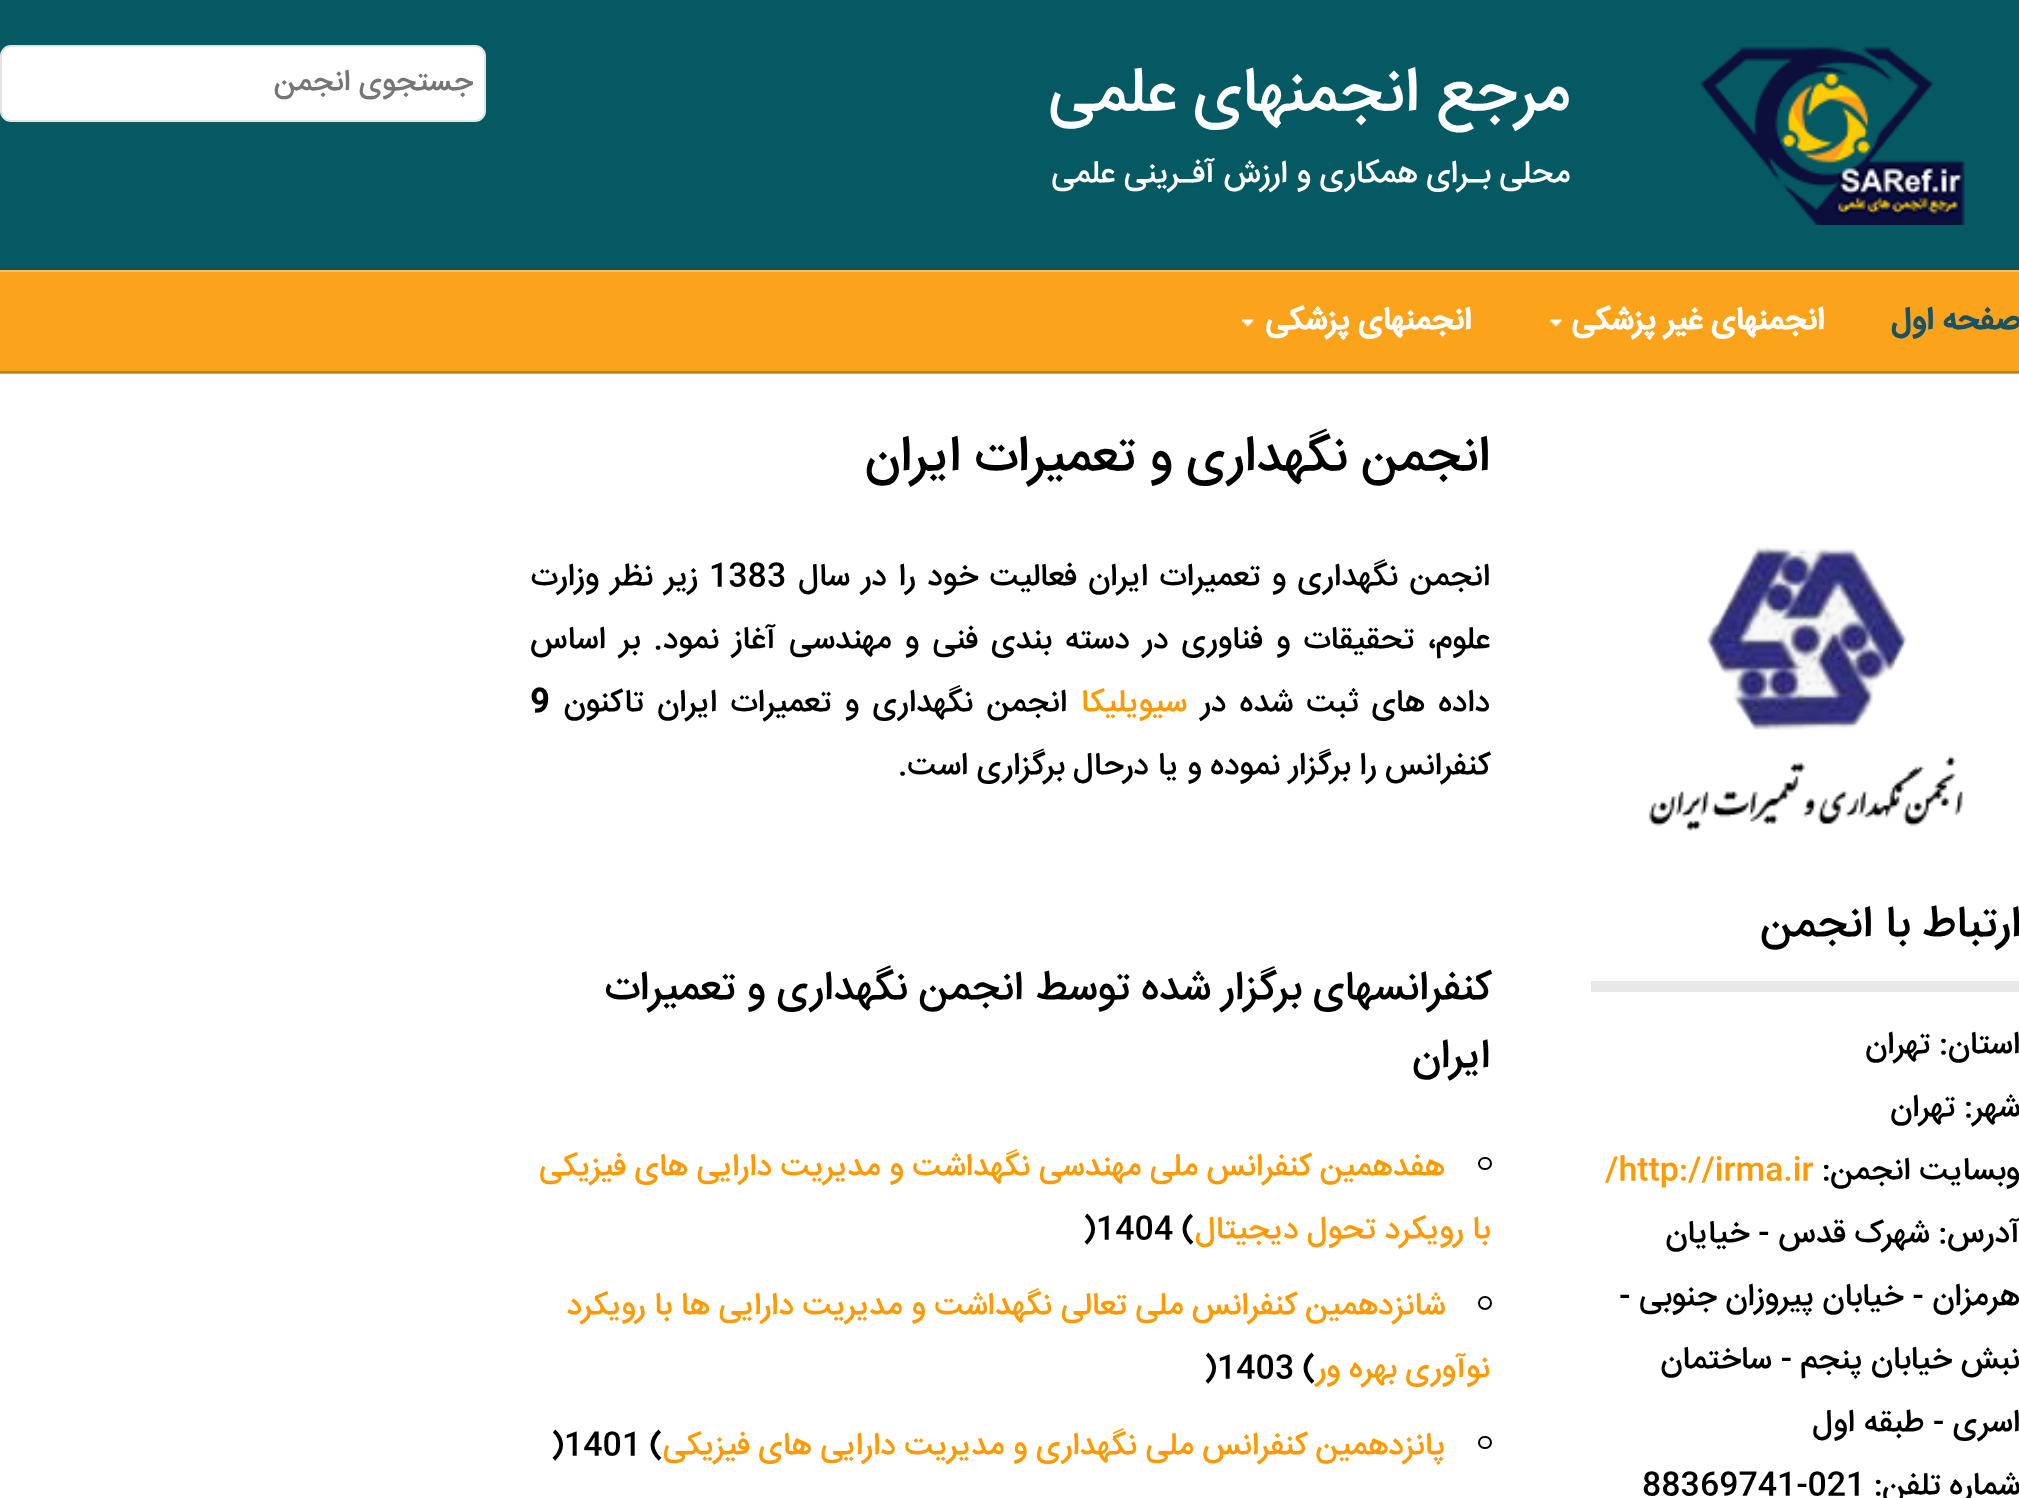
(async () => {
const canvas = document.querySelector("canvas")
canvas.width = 2019
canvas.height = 1498
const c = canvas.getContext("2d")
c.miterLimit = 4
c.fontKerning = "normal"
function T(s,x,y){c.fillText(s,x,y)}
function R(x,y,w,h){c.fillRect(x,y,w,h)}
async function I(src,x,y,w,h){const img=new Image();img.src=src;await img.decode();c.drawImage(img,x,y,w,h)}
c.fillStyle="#055963"
R(0,0,2019,1498)
await I("1.png",1700,46,265,179)
c.direction="rtl"
c.font="500 63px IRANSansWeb"
c.fillStyle="#fff"
T("مرجع انجمنهای علمی",1570,110)
c.font="500 31.5px IRANSansWeb"
T("محلی بـرای همکاری و ارزش آفـرینی علمی",1570,182)
c.beginPath()
c.roundRect(1,46,484,75,10)
c.fill()
c.strokeStyle="#e5e4e3"
c.lineWidth=2
c.stroke()
c.font="500 30px IRANSansWeb"
c.fillStyle="#757575"
T("جستجوی انجمن",473,90)
c.fillStyle="#faa31b"
R(0,272,2019,102)
c.fillStyle="#fcbd5a"
R(0,270,2019,2)
c.fillStyle="#bc7c18"
R(0,371,2019,2)
c.font="bold 31.5px IRANSansWeb"
c.fillStyle="#175265"
T("صفحه اول",2020,329)
await I("2.png",1550,319,12,8)
c.fillStyle="#fff"
T("انجمنهای غیر پزشکی",1824,329)
await I("3.png",1242,319,12,8)
T("انجمنهای پزشکی",1471,329)
R(0,374,2019,1124)
await I("4.png",1648,546,315,285)
c.fillStyle="#e8e8e8"
R(1591,981,428,11)
c.font="500 44px IRANSansWeb"
c.fillStyle="#000"
T("ارتباط با انجمن",2021,936)
c.font="500 31.5px IRANSansWeb"
T("استان: تهران",2020,1053)
T("شهر: تهران",2020,1116)
T("وبسایت انجمن:",2020,1179)
c.direction="ltr"
c.fillStyle="#f90"
T("/http://irma.ir",1605,1179)
c.direction="rtl"
c.fillStyle="#000"
T("آدرس: شهرک قدس - خیایان",2020,1242)
T("هرمزان - خیابان پیروزان جنوبی -",2020,1305)
T("نبش خیابان پنجم - ساختمان",2020,1368)
T("اسری - طبقه اول",2020,1431)
T("شماره تلفن:",2020,1494)
c.direction="ltr"
T("88369741-021",1642,1494)
c.direction="rtl"
c.font="500 50.4px IRANSansWeb"
T("انجمن نگهداری و تعمیرات ایران",1490,470)
c.wordSpacing="2.75px"
c.font="500 31.5px IRANSansWeb"
T("انجمن نگهداری و تعمیرات ایران فعالیت خود را در سال",1490,585)
c.wordSpacing="0px"
c.direction="ltr"
T("1383",709,585)
c.wordSpacing="2.75px"
c.direction="rtl"
T("زیر نظر وزارت",698,585)
c.wordSpacing="4.5px"
T("علوم، تحقیقات و فناوری در دسته بندی فنی و مهندسی آغاز نمود.",1490,648)
c.wordSpacing="5px"
T("بر اساس",640,648)
c.wordSpacing="4.75px"
T("داده های ثبت شده در",1490,711)
c.wordSpacing="0px"
c.fillStyle="#f90"
T("سیویلیکا",1187,711)
c.wordSpacing="4.75px"
c.fillStyle="#000"
T("انجمن نگهداری و تعمیرات ایران تاکنون",1067,711)
c.wordSpacing="0px"
c.direction="ltr"
c.font="bold 31.5px IRANSansWeb"
T("9",530,711)
c.direction="rtl"
c.font="500 31.5px IRANSansWeb"
T("کنفرانس را برگزار نموده و یا درحال برگزاری است.",1490,774)
c.font="500 40.95px IRANSansWeb"
T("کنفرانسهای برگزار شده توسط انجمن نگهداری و تعمیرات",1491,999)
T("ایران",1490,1067)
c.beginPath()
c.roundRect(1479,1158,12,11,5.5)
c.strokeStyle="#000"
c.stroke()
c.font="500 31.5px IRANSansWeb"
c.fillStyle="#f90"
T("هفدهمین کنفرانس ملی مهندسی نگهداشت و مدیریت دارایی های فیزیکی",1445,1175)
T("با رویکرد تحول دیجیتال",1490,1238)
c.direction="ltr"
c.fillStyle="#000"
T("1404 (",1096,1238)
T(")",1083,1238)
c.beginPath()
c.arc(1485,1303,6,0,7)
c.stroke()
c.direction="rtl"
c.fillStyle="#f90"
T("شانزدهمین کنفرانس ملی تعالی نگهداشت و مدیریت دارایی ها با رویکرد",1445,1314)
T("نوآوری بهره ور",1490,1377)
c.direction="ltr"
c.fillStyle="#000"
T("1403 (",1217,1377)
T(")",1204,1377)
c.beginPath()
c.roundRect(1479,1437,12,11,5.5)
c.stroke()
c.direction="rtl"
c.fillStyle="#f90"
T("پانزدهمین کنفرانس ملی نگهداری و مدیریت دارایی های فیزیکی",1445,1454)
c.direction="ltr"
c.fillStyle="#000"
T("1401 (",564,1454)
T(")",551,1454)
})()
